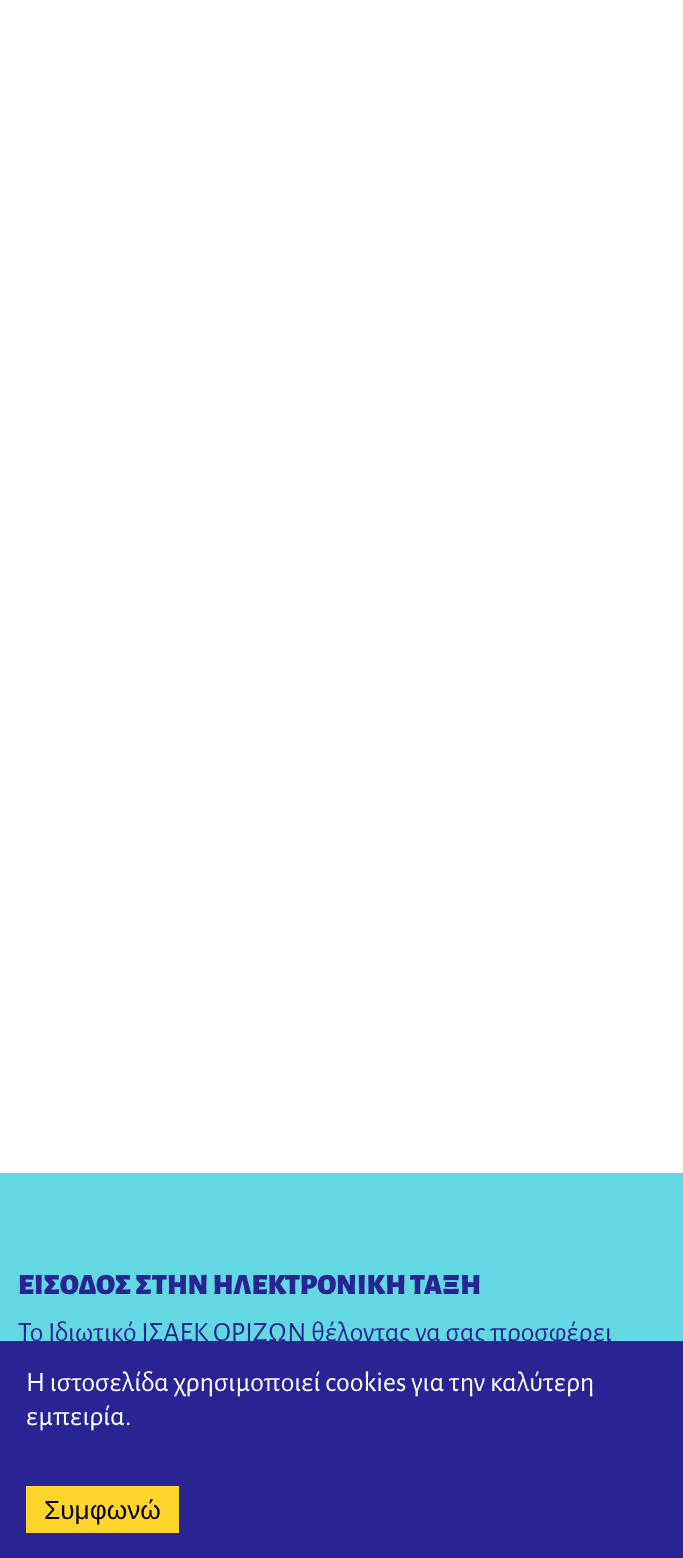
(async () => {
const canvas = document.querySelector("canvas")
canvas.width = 683
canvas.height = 1558
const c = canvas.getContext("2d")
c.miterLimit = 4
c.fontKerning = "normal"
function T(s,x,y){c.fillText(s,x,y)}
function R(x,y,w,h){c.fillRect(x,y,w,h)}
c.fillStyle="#fff"
R(0,0,683,1558)
c.fillStyle="#63d7e2"
R(0,1173,683,168)
c.font="900 29.4px Alegreya Sans"
c.fillStyle="#292493"
T("ΕΙΣΟΔΟΣ ΣΤΗΝ ΗΛΕΚΤΡΟΝΙΚΗ ΤΑΞΗ",18,1294)
c.font="28px Alegreya Sans"
T("Το Ιδιωτικό ΙΣΑΕΚ ΟΡΙΖΩΝ θέλοντας να σας προσφέρει",18,1341)
R(0,1341,683,217)
c.fillStyle="#fff"
T("Η ιστοσελίδα χρησιμοποιεί cookies για την καλύτερη",26,1391)
T("εμπειρία.",26,1425)
c.fillStyle="#ffd42d"
R(26,1486,153,47)
c.font="26.25px Liberation Sans"
c.fillStyle="#000"
T("Συμφωνώ",44,1519)
})()
